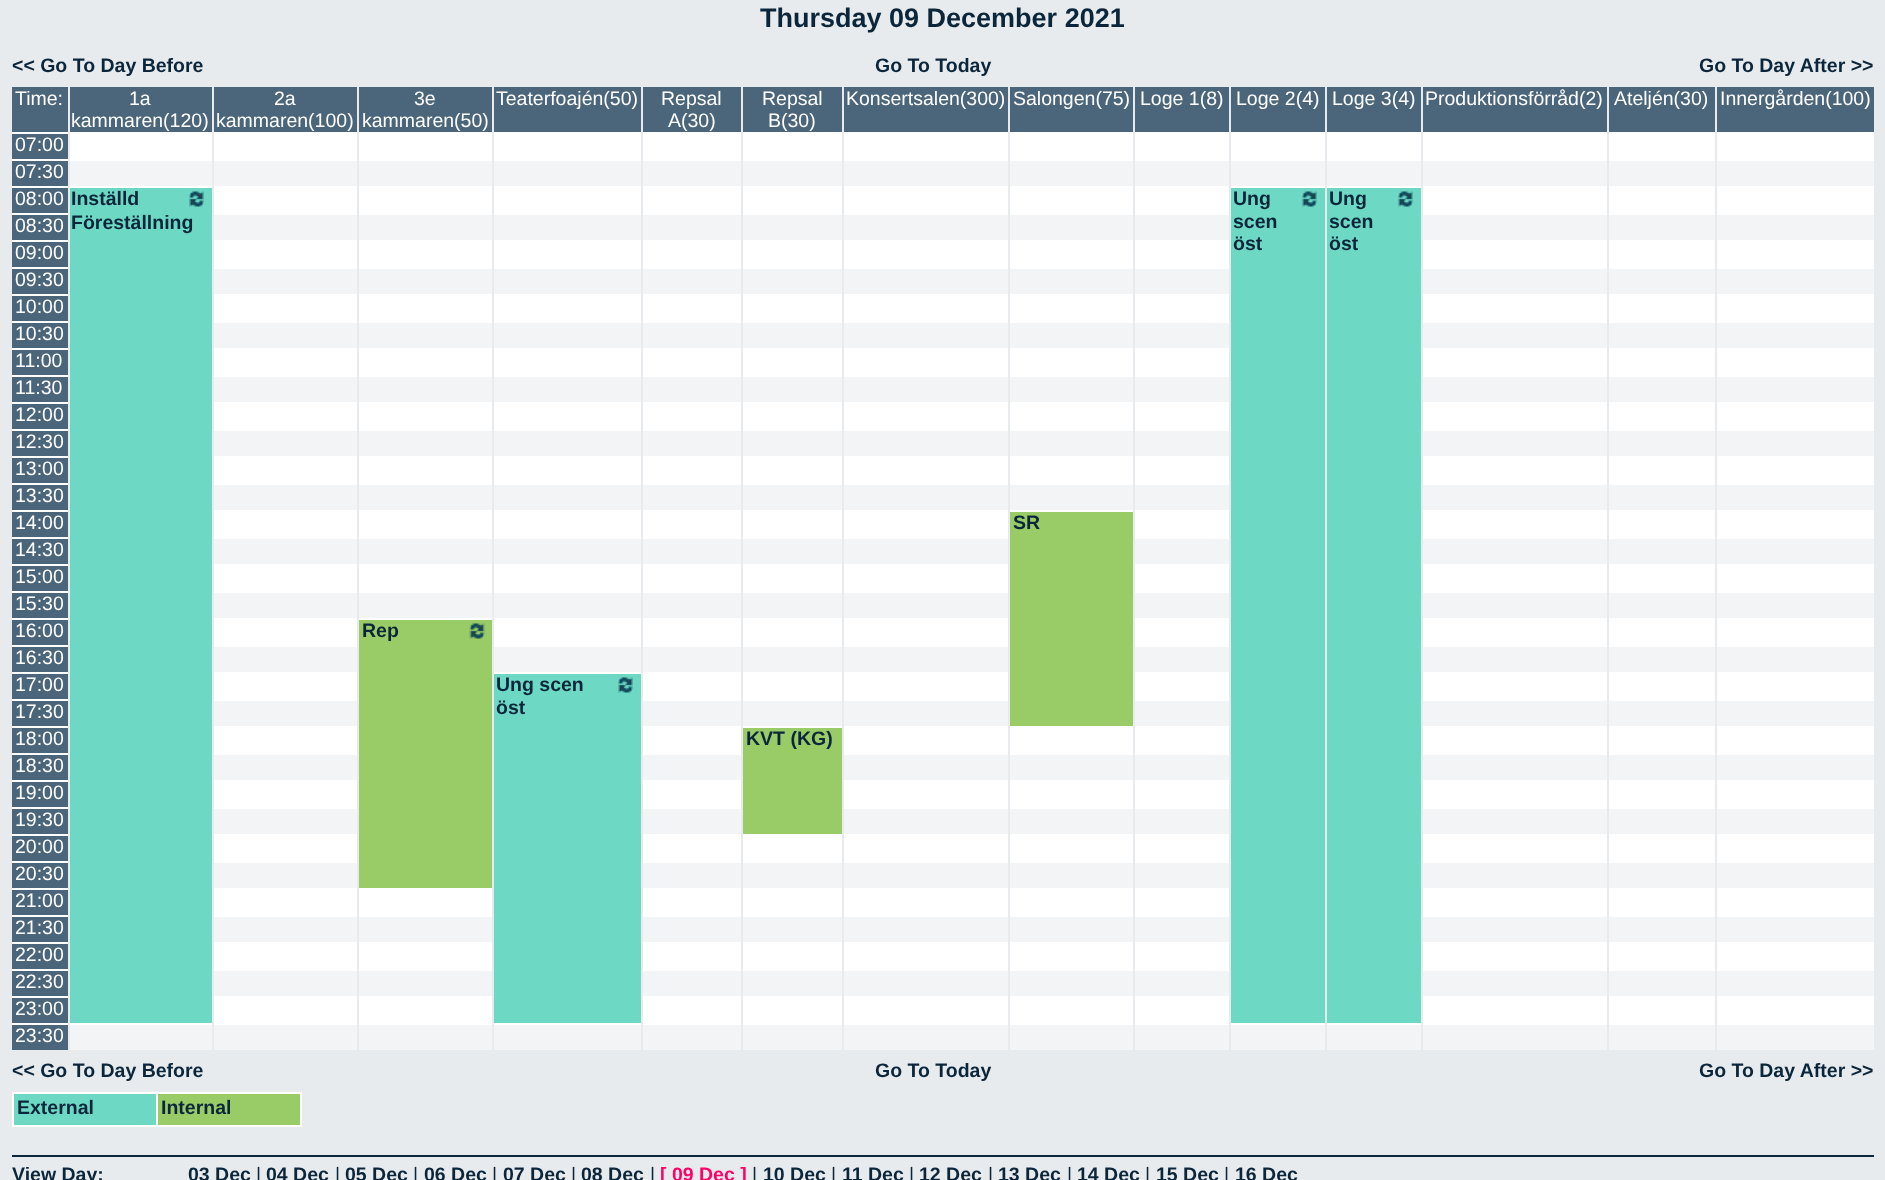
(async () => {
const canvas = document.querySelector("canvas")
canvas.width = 1885
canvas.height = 1180
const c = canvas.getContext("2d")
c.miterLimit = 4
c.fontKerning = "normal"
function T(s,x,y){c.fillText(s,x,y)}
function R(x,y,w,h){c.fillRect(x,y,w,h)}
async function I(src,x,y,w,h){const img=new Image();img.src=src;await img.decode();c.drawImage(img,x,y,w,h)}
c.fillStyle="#e7ebee"
R(0,0,1885,1180)
c.font="bold 27px Liberation Sans"
c.fillStyle="#0b263b"
T("Thursday 09 December 2021",760,27)
c.font="bold 19.5px Liberation Sans"
T("<< Go To Day Before",12,72)
T("Go To Today",875,72)
T("Go To Day After >>",1699,72)
c.fillStyle="#4b667b"
R(12,87,56,45)
c.font="19.5px Liberation Sans"
c.fillStyle="#fff"
T("Time:",15,105)
c.fillStyle="#4b667b"
R(70,87,142,45)
c.fillStyle="#fff"
T("1a",129,105)
T("kammaren(120)",71,127)
c.fillStyle="#4b667b"
R(214,87,143,45)
c.fillStyle="#fff"
T("2a",274,105)
T("kammaren(100)",216,127)
c.fillStyle="#4b667b"
R(359,87,133,45)
c.fillStyle="#fff"
T("3e",414,105)
T("kammaren(50)",362,127)
c.fillStyle="#4b667b"
R(494,87,147,45)
c.fillStyle="#fff"
T("Teaterfoajén(50)",496,105)
c.fillStyle="#4b667b"
R(643,87,98,45)
c.fillStyle="#fff"
T("Repsal",661,105)
T("A(30)",668,127)
c.fillStyle="#4b667b"
R(743,87,99,45)
c.fillStyle="#fff"
T("Repsal",762,105)
T("B(30)",768,127)
c.fillStyle="#4b667b"
R(844,87,164,45)
c.fillStyle="#fff"
T("Konsertsalen(300)",846,105)
c.fillStyle="#4b667b"
R(1010,87,123,45)
c.fillStyle="#fff"
T("Salongen(75)",1013,105)
c.fillStyle="#4b667b"
R(1135,87,94,45)
c.fillStyle="#fff"
T("Loge 1(8)",1140,105)
c.fillStyle="#4b667b"
R(1231,87,94,45)
c.fillStyle="#fff"
T("Loge 2(4)",1236,105)
c.fillStyle="#4b667b"
R(1327,87,94,45)
c.fillStyle="#fff"
T("Loge 3(4)",1332,105)
c.fillStyle="#4b667b"
R(1423,87,184,45)
c.fillStyle="#fff"
T("Produktionsförråd(2)",1425,105)
c.fillStyle="#4b667b"
R(1609,87,106,45)
c.fillStyle="#fff"
T("Ateljén(30)",1614,105)
c.fillStyle="#4b667b"
R(1717,87,157,45)
c.fillStyle="#fff"
T("Innergården(100)",1720,105)
c.fillStyle="#4b667b"
R(12,134,56,25)
c.fillStyle="#fff"
R(12,132,56,2)
T("07:00",15,151)
R(70,132,142,27)
R(214,132,143,27)
R(359,132,133,27)
R(494,132,147,27)
R(643,132,98,27)
R(743,132,99,27)
R(844,132,164,27)
R(1010,132,123,27)
R(1135,132,94,27)
R(1231,132,94,27)
R(1327,132,94,27)
R(1423,132,184,27)
R(1609,132,106,27)
R(1717,132,157,27)
c.fillStyle="#4b667b"
R(12,161,56,25)
c.fillStyle="#fff"
R(12,159,1862,2)
T("07:30",15,178)
c.fillStyle="#f2f4f6"
R(70,161,142,25)
c.fillStyle="#e7ebee"
R(68,159,2,2)
c.fillStyle="#f2f4f6"
R(214,161,143,25)
c.fillStyle="#e7ebee"
R(212,159,2,2)
c.fillStyle="#f2f4f6"
R(359,161,133,25)
c.fillStyle="#e7ebee"
R(357,159,2,2)
c.fillStyle="#f2f4f6"
R(494,161,147,25)
c.fillStyle="#e7ebee"
R(492,159,2,2)
c.fillStyle="#f2f4f6"
R(643,161,98,25)
c.fillStyle="#e7ebee"
R(641,159,2,2)
c.fillStyle="#f2f4f6"
R(743,161,99,25)
c.fillStyle="#e7ebee"
R(741,159,2,2)
c.fillStyle="#f2f4f6"
R(844,161,164,25)
c.fillStyle="#e7ebee"
R(842,159,2,2)
c.fillStyle="#f2f4f6"
R(1010,161,123,25)
c.fillStyle="#e7ebee"
R(1008,159,2,2)
c.fillStyle="#f2f4f6"
R(1135,161,94,25)
c.fillStyle="#e7ebee"
R(1133,159,2,2)
c.fillStyle="#f2f4f6"
R(1231,161,94,25)
c.fillStyle="#e7ebee"
R(1229,159,2,2)
c.fillStyle="#f2f4f6"
R(1327,161,94,25)
c.fillStyle="#e7ebee"
R(1325,159,2,2)
c.fillStyle="#f2f4f6"
R(1423,161,184,25)
c.fillStyle="#e7ebee"
R(1421,159,2,2)
c.fillStyle="#f2f4f6"
R(1609,161,106,25)
c.fillStyle="#e7ebee"
R(1607,159,2,2)
c.fillStyle="#f2f4f6"
R(1717,161,157,25)
c.fillStyle="#e7ebee"
R(1715,159,2,2)
c.fillStyle="#4b667b"
R(12,188,56,25)
c.fillStyle="#fff"
R(12,186,200,2)
T("08:00",15,205)
c.fillStyle="#6dd9c4"
R(70,188,142,835)
c.fillStyle="#e7ebee"
R(68,186,2,2)
c.font="bold 19.5px Liberation Sans"
c.fillStyle="#0b263b"
T("Inställd",71,205)
await I("1.png",189,191,15,16)
T("Föreställning",71,229)
c.fillStyle="#fff"
R(214,186,143,27)
R(359,186,133,27)
R(494,186,147,27)
R(643,186,98,27)
R(743,186,99,27)
R(844,186,164,27)
R(1010,186,123,27)
R(1135,186,94,27)
c.fillStyle="#6dd9c4"
R(1231,188,94,835)
c.fillStyle="#fff"
R(1229,186,192,2)
c.fillStyle="#e7ebee"
R(1229,186,2,2)
c.fillStyle="#0b263b"
T("Ung",1233,205)
await I("1.png",1302,191,15,16)
T("scen",1233,228)
T("öst",1233,250)
c.fillStyle="#6dd9c4"
R(1327,188,94,835)
c.fillStyle="#e7ebee"
R(1325,186,2,2)
c.fillStyle="#0b263b"
T("Ung",1329,205)
await I("1.png",1398,191,15,16)
T("scen",1329,228)
T("öst",1329,250)
c.fillStyle="#fff"
R(1423,186,184,27)
R(1609,186,106,27)
R(1717,186,157,27)
c.fillStyle="#f2f4f6"
R(214,215,143,25)
c.fillStyle="#fff"
R(212,213,1017,2)
c.fillStyle="#e7ebee"
R(212,213,2,2)
c.fillStyle="#f2f4f6"
R(359,215,133,25)
c.fillStyle="#e7ebee"
R(357,213,2,2)
c.fillStyle="#f2f4f6"
R(494,215,147,25)
c.fillStyle="#e7ebee"
R(492,213,2,2)
c.fillStyle="#f2f4f6"
R(643,215,98,25)
c.fillStyle="#e7ebee"
R(641,213,2,2)
c.fillStyle="#f2f4f6"
R(743,215,99,25)
c.fillStyle="#e7ebee"
R(741,213,2,2)
c.fillStyle="#f2f4f6"
R(844,215,164,25)
c.fillStyle="#e7ebee"
R(842,213,2,2)
c.fillStyle="#f2f4f6"
R(1010,215,123,25)
c.fillStyle="#e7ebee"
R(1008,213,2,2)
c.fillStyle="#f2f4f6"
R(1135,215,94,25)
c.fillStyle="#e7ebee"
R(1133,213,2,2)
c.fillStyle="#f2f4f6"
R(1423,215,184,25)
c.fillStyle="#fff"
R(1421,213,453,2)
c.fillStyle="#e7ebee"
R(1421,213,2,2)
c.fillStyle="#4b667b"
R(12,215,56,25)
c.fillStyle="#fff"
R(12,213,56,2)
c.font="19.5px Liberation Sans"
T("08:30",15,232)
c.fillStyle="#f2f4f6"
R(1609,215,106,25)
c.fillStyle="#e7ebee"
R(1607,213,2,2)
c.fillStyle="#f2f4f6"
R(1717,215,157,25)
c.fillStyle="#e7ebee"
R(1715,213,2,2)
c.fillStyle="#4b667b"
R(12,242,56,25)
c.fillStyle="#fff"
R(12,240,56,2)
T("09:00",15,259)
R(214,240,143,27)
R(359,240,133,27)
R(494,240,147,27)
R(643,240,98,27)
R(743,240,99,27)
R(844,240,164,27)
R(1010,240,123,27)
R(1135,240,94,27)
R(1423,240,184,27)
R(1609,240,106,27)
R(1717,240,157,27)
c.fillStyle="#f2f4f6"
R(214,269,143,25)
c.fillStyle="#fff"
R(212,267,1017,2)
c.fillStyle="#e7ebee"
R(212,267,2,2)
c.fillStyle="#f2f4f6"
R(359,269,133,25)
c.fillStyle="#e7ebee"
R(357,267,2,2)
c.fillStyle="#f2f4f6"
R(494,269,147,25)
c.fillStyle="#e7ebee"
R(492,267,2,2)
c.fillStyle="#f2f4f6"
R(643,269,98,25)
c.fillStyle="#e7ebee"
R(641,267,2,2)
c.fillStyle="#f2f4f6"
R(743,269,99,25)
c.fillStyle="#e7ebee"
R(741,267,2,2)
c.fillStyle="#f2f4f6"
R(844,269,164,25)
c.fillStyle="#e7ebee"
R(842,267,2,2)
c.fillStyle="#f2f4f6"
R(1010,269,123,25)
c.fillStyle="#e7ebee"
R(1008,267,2,2)
c.fillStyle="#f2f4f6"
R(1135,269,94,25)
c.fillStyle="#e7ebee"
R(1133,267,2,2)
c.fillStyle="#f2f4f6"
R(1423,269,184,25)
c.fillStyle="#fff"
R(1421,267,453,2)
c.fillStyle="#e7ebee"
R(1421,267,2,2)
c.fillStyle="#4b667b"
R(12,269,56,25)
c.fillStyle="#fff"
R(12,267,56,2)
T("09:30",15,286)
c.fillStyle="#f2f4f6"
R(1609,269,106,25)
c.fillStyle="#e7ebee"
R(1607,267,2,2)
c.fillStyle="#f2f4f6"
R(1717,269,157,25)
c.fillStyle="#e7ebee"
R(1715,267,2,2)
c.fillStyle="#4b667b"
R(12,296,56,25)
c.fillStyle="#fff"
R(12,294,56,2)
T("10:00",15,313)
R(214,294,143,27)
R(359,294,133,27)
R(494,294,147,27)
R(643,294,98,27)
R(743,294,99,27)
R(844,294,164,27)
R(1010,294,123,27)
R(1135,294,94,27)
R(1423,294,184,27)
R(1609,294,106,27)
R(1717,294,157,27)
c.fillStyle="#f2f4f6"
R(214,323,143,25)
c.fillStyle="#fff"
R(212,321,1017,2)
c.fillStyle="#e7ebee"
R(212,321,2,2)
c.fillStyle="#f2f4f6"
R(359,323,133,25)
c.fillStyle="#e7ebee"
R(357,321,2,2)
c.fillStyle="#f2f4f6"
R(494,323,147,25)
c.fillStyle="#e7ebee"
R(492,321,2,2)
c.fillStyle="#f2f4f6"
R(643,323,98,25)
c.fillStyle="#e7ebee"
R(641,321,2,2)
c.fillStyle="#f2f4f6"
R(743,323,99,25)
c.fillStyle="#e7ebee"
R(741,321,2,2)
c.fillStyle="#f2f4f6"
R(844,323,164,25)
c.fillStyle="#e7ebee"
R(842,321,2,2)
c.fillStyle="#f2f4f6"
R(1010,323,123,25)
c.fillStyle="#e7ebee"
R(1008,321,2,2)
c.fillStyle="#f2f4f6"
R(1135,323,94,25)
c.fillStyle="#e7ebee"
R(1133,321,2,2)
c.fillStyle="#f2f4f6"
R(1423,323,184,25)
c.fillStyle="#fff"
R(1421,321,453,2)
c.fillStyle="#e7ebee"
R(1421,321,2,2)
c.fillStyle="#4b667b"
R(12,323,56,25)
c.fillStyle="#fff"
R(12,321,56,2)
T("10:30",15,340)
c.fillStyle="#f2f4f6"
R(1609,323,106,25)
c.fillStyle="#e7ebee"
R(1607,321,2,2)
c.fillStyle="#f2f4f6"
R(1717,323,157,25)
c.fillStyle="#e7ebee"
R(1715,321,2,2)
c.fillStyle="#4b667b"
R(12,350,56,25)
c.fillStyle="#fff"
R(12,348,56,2)
T("11:00",15,367)
R(214,348,143,27)
R(359,348,133,27)
R(494,348,147,27)
R(643,348,98,27)
R(743,348,99,27)
R(844,348,164,27)
R(1010,348,123,27)
R(1135,348,94,27)
R(1423,348,184,27)
R(1609,348,106,27)
R(1717,348,157,27)
c.fillStyle="#f2f4f6"
R(214,377,143,25)
c.fillStyle="#fff"
R(212,375,1017,2)
c.fillStyle="#e7ebee"
R(212,375,2,2)
c.fillStyle="#f2f4f6"
R(359,377,133,25)
c.fillStyle="#e7ebee"
R(357,375,2,2)
c.fillStyle="#f2f4f6"
R(494,377,147,25)
c.fillStyle="#e7ebee"
R(492,375,2,2)
c.fillStyle="#f2f4f6"
R(643,377,98,25)
c.fillStyle="#e7ebee"
R(641,375,2,2)
c.fillStyle="#f2f4f6"
R(743,377,99,25)
c.fillStyle="#e7ebee"
R(741,375,2,2)
c.fillStyle="#f2f4f6"
R(844,377,164,25)
c.fillStyle="#e7ebee"
R(842,375,2,2)
c.fillStyle="#f2f4f6"
R(1010,377,123,25)
c.fillStyle="#e7ebee"
R(1008,375,2,2)
c.fillStyle="#f2f4f6"
R(1135,377,94,25)
c.fillStyle="#e7ebee"
R(1133,375,2,2)
c.fillStyle="#f2f4f6"
R(1423,377,184,25)
c.fillStyle="#fff"
R(1421,375,453,2)
c.fillStyle="#e7ebee"
R(1421,375,2,2)
c.fillStyle="#4b667b"
R(12,377,56,25)
c.fillStyle="#fff"
R(12,375,56,2)
T("11:30",15,394)
c.fillStyle="#f2f4f6"
R(1609,377,106,25)
c.fillStyle="#e7ebee"
R(1607,375,2,2)
c.fillStyle="#f2f4f6"
R(1717,377,157,25)
c.fillStyle="#e7ebee"
R(1715,375,2,2)
c.fillStyle="#4b667b"
R(12,404,56,25)
c.fillStyle="#fff"
R(12,402,56,2)
T("12:00",15,421)
R(214,402,143,27)
R(359,402,133,27)
R(494,402,147,27)
R(643,402,98,27)
R(743,402,99,27)
R(844,402,164,27)
R(1010,402,123,27)
R(1135,402,94,27)
R(1423,402,184,27)
R(1609,402,106,27)
R(1717,402,157,27)
c.fillStyle="#f2f4f6"
R(214,431,143,25)
c.fillStyle="#fff"
R(212,429,1017,2)
c.fillStyle="#e7ebee"
R(212,429,2,2)
c.fillStyle="#f2f4f6"
R(359,431,133,25)
c.fillStyle="#e7ebee"
R(357,429,2,2)
c.fillStyle="#f2f4f6"
R(494,431,147,25)
c.fillStyle="#e7ebee"
R(492,429,2,2)
c.fillStyle="#f2f4f6"
R(643,431,98,25)
c.fillStyle="#e7ebee"
R(641,429,2,2)
c.fillStyle="#f2f4f6"
R(743,431,99,25)
c.fillStyle="#e7ebee"
R(741,429,2,2)
c.fillStyle="#f2f4f6"
R(844,431,164,25)
c.fillStyle="#e7ebee"
R(842,429,2,2)
c.fillStyle="#f2f4f6"
R(1010,431,123,25)
c.fillStyle="#e7ebee"
R(1008,429,2,2)
c.fillStyle="#f2f4f6"
R(1135,431,94,25)
c.fillStyle="#e7ebee"
R(1133,429,2,2)
c.fillStyle="#f2f4f6"
R(1423,431,184,25)
c.fillStyle="#fff"
R(1421,429,453,2)
c.fillStyle="#e7ebee"
R(1421,429,2,2)
c.fillStyle="#4b667b"
R(12,431,56,25)
c.fillStyle="#fff"
R(12,429,56,2)
T("12:30",15,448)
c.fillStyle="#f2f4f6"
R(1609,431,106,25)
c.fillStyle="#e7ebee"
R(1607,429,2,2)
c.fillStyle="#f2f4f6"
R(1717,431,157,25)
c.fillStyle="#e7ebee"
R(1715,429,2,2)
c.fillStyle="#4b667b"
R(12,458,56,25)
c.fillStyle="#fff"
R(12,456,56,2)
T("13:00",15,475)
R(214,456,143,27)
R(359,456,133,27)
R(494,456,147,27)
R(643,456,98,27)
R(743,456,99,27)
R(844,456,164,27)
R(1010,456,123,27)
R(1135,456,94,27)
R(1423,456,184,27)
R(1609,456,106,27)
R(1717,456,157,27)
c.fillStyle="#f2f4f6"
R(214,485,143,25)
c.fillStyle="#fff"
R(212,483,1017,2)
c.fillStyle="#e7ebee"
R(212,483,2,2)
c.fillStyle="#f2f4f6"
R(359,485,133,25)
c.fillStyle="#e7ebee"
R(357,483,2,2)
c.fillStyle="#f2f4f6"
R(494,485,147,25)
c.fillStyle="#e7ebee"
R(492,483,2,2)
c.fillStyle="#f2f4f6"
R(643,485,98,25)
c.fillStyle="#e7ebee"
R(641,483,2,2)
c.fillStyle="#f2f4f6"
R(743,485,99,25)
c.fillStyle="#e7ebee"
R(741,483,2,2)
c.fillStyle="#f2f4f6"
R(844,485,164,25)
c.fillStyle="#e7ebee"
R(842,483,2,2)
c.fillStyle="#f2f4f6"
R(1010,485,123,25)
c.fillStyle="#e7ebee"
R(1008,483,2,2)
c.fillStyle="#f2f4f6"
R(1135,485,94,25)
c.fillStyle="#e7ebee"
R(1133,483,2,2)
c.fillStyle="#f2f4f6"
R(1423,485,184,25)
c.fillStyle="#fff"
R(1421,483,453,2)
c.fillStyle="#e7ebee"
R(1421,483,2,2)
c.fillStyle="#4b667b"
R(12,485,56,25)
c.fillStyle="#fff"
R(12,483,56,2)
T("13:30",15,502)
c.fillStyle="#f2f4f6"
R(1609,485,106,25)
c.fillStyle="#e7ebee"
R(1607,483,2,2)
c.fillStyle="#f2f4f6"
R(1717,485,157,25)
c.fillStyle="#e7ebee"
R(1715,483,2,2)
c.fillStyle="#4b667b"
R(12,512,56,25)
c.fillStyle="#fff"
R(12,510,56,2)
T("14:00",15,529)
R(214,510,143,27)
R(359,510,133,27)
R(494,510,147,27)
R(643,510,98,27)
R(743,510,99,27)
R(844,510,164,27)
c.fillStyle="#9c6"
R(1010,512,123,214)
c.fillStyle="#fff"
R(1008,510,125,2)
c.fillStyle="#e7ebee"
R(1008,510,2,2)
c.font="bold 19.5px Liberation Sans"
c.fillStyle="#0b263b"
T("SR",1013,529)
c.fillStyle="#fff"
R(1135,510,94,27)
R(1423,510,184,27)
R(1609,510,106,27)
R(1717,510,157,27)
c.fillStyle="#f2f4f6"
R(214,539,143,25)
c.fillStyle="#fff"
R(212,537,796,2)
c.fillStyle="#e7ebee"
R(212,537,2,2)
c.fillStyle="#f2f4f6"
R(359,539,133,25)
c.fillStyle="#e7ebee"
R(357,537,2,2)
c.fillStyle="#f2f4f6"
R(494,539,147,25)
c.fillStyle="#e7ebee"
R(492,537,2,2)
c.fillStyle="#f2f4f6"
R(643,539,98,25)
c.fillStyle="#e7ebee"
R(641,537,2,2)
c.fillStyle="#f2f4f6"
R(743,539,99,25)
c.fillStyle="#e7ebee"
R(741,537,2,2)
c.fillStyle="#f2f4f6"
R(844,539,164,25)
c.fillStyle="#e7ebee"
R(842,537,2,2)
c.fillStyle="#f2f4f6"
R(1135,539,94,25)
c.fillStyle="#fff"
R(1133,537,96,2)
c.fillStyle="#e7ebee"
R(1133,537,2,2)
c.fillStyle="#f2f4f6"
R(1423,539,184,25)
c.fillStyle="#fff"
R(1421,537,453,2)
c.fillStyle="#e7ebee"
R(1421,537,2,2)
c.fillStyle="#4b667b"
R(12,539,56,25)
c.fillStyle="#fff"
R(12,537,56,2)
c.font="19.5px Liberation Sans"
T("14:30",15,556)
c.fillStyle="#f2f4f6"
R(1609,539,106,25)
c.fillStyle="#e7ebee"
R(1607,537,2,2)
c.fillStyle="#f2f4f6"
R(1717,539,157,25)
c.fillStyle="#e7ebee"
R(1715,537,2,2)
c.fillStyle="#4b667b"
R(12,566,56,25)
c.fillStyle="#fff"
R(12,564,56,2)
T("15:00",15,583)
R(214,564,143,27)
R(359,564,133,27)
R(494,564,147,27)
R(643,564,98,27)
R(743,564,99,27)
R(844,564,164,27)
R(1135,564,94,27)
R(1423,564,184,27)
R(1609,564,106,27)
R(1717,564,157,27)
c.fillStyle="#f2f4f6"
R(214,593,143,25)
c.fillStyle="#fff"
R(212,591,796,2)
c.fillStyle="#e7ebee"
R(212,591,2,2)
c.fillStyle="#f2f4f6"
R(359,593,133,25)
c.fillStyle="#e7ebee"
R(357,591,2,2)
c.fillStyle="#f2f4f6"
R(494,593,147,25)
c.fillStyle="#e7ebee"
R(492,591,2,2)
c.fillStyle="#f2f4f6"
R(643,593,98,25)
c.fillStyle="#e7ebee"
R(641,591,2,2)
c.fillStyle="#f2f4f6"
R(743,593,99,25)
c.fillStyle="#e7ebee"
R(741,591,2,2)
c.fillStyle="#f2f4f6"
R(844,593,164,25)
c.fillStyle="#e7ebee"
R(842,591,2,2)
c.fillStyle="#f2f4f6"
R(1135,593,94,25)
c.fillStyle="#fff"
R(1133,591,96,2)
c.fillStyle="#e7ebee"
R(1133,591,2,2)
c.fillStyle="#f2f4f6"
R(1423,593,184,25)
c.fillStyle="#fff"
R(1421,591,453,2)
c.fillStyle="#e7ebee"
R(1421,591,2,2)
c.fillStyle="#4b667b"
R(12,593,56,25)
c.fillStyle="#fff"
R(12,591,56,2)
T("15:30",15,610)
c.fillStyle="#f2f4f6"
R(1609,593,106,25)
c.fillStyle="#e7ebee"
R(1607,591,2,2)
c.fillStyle="#f2f4f6"
R(1717,593,157,25)
c.fillStyle="#e7ebee"
R(1715,591,2,2)
c.fillStyle="#4b667b"
R(12,620,56,25)
c.fillStyle="#fff"
R(12,618,56,2)
T("16:00",15,637)
R(214,618,143,27)
c.fillStyle="#9c6"
R(359,620,133,268)
c.fillStyle="#fff"
R(357,618,135,2)
c.fillStyle="#e7ebee"
R(357,618,2,2)
c.font="bold 19.5px Liberation Sans"
c.fillStyle="#0b263b"
T("Rep",362,637)
await I("2.png",469,623,16,16)
c.fillStyle="#fff"
R(494,618,147,27)
R(643,618,98,27)
R(743,618,99,27)
R(844,618,164,27)
R(1135,618,94,27)
R(1423,618,184,27)
R(1609,618,106,27)
R(1717,618,157,27)
c.fillStyle="#f2f4f6"
R(214,647,143,25)
c.fillStyle="#fff"
R(212,645,145,2)
c.fillStyle="#e7ebee"
R(212,645,2,2)
c.fillStyle="#f2f4f6"
R(494,647,147,25)
c.fillStyle="#fff"
R(492,645,516,2)
c.fillStyle="#e7ebee"
R(492,645,2,2)
c.fillStyle="#f2f4f6"
R(643,647,98,25)
c.fillStyle="#e7ebee"
R(641,645,2,2)
c.fillStyle="#f2f4f6"
R(743,647,99,25)
c.fillStyle="#e7ebee"
R(741,645,2,2)
c.fillStyle="#f2f4f6"
R(844,647,164,25)
c.fillStyle="#e7ebee"
R(842,645,2,2)
c.fillStyle="#f2f4f6"
R(1135,647,94,25)
c.fillStyle="#fff"
R(1133,645,96,2)
c.fillStyle="#e7ebee"
R(1133,645,2,2)
c.fillStyle="#f2f4f6"
R(1423,647,184,25)
c.fillStyle="#fff"
R(1421,645,453,2)
c.fillStyle="#e7ebee"
R(1421,645,2,2)
c.fillStyle="#4b667b"
R(12,647,56,25)
c.fillStyle="#fff"
R(12,645,56,2)
c.font="19.5px Liberation Sans"
T("16:30",15,664)
c.fillStyle="#f2f4f6"
R(1609,647,106,25)
c.fillStyle="#e7ebee"
R(1607,645,2,2)
c.fillStyle="#f2f4f6"
R(1717,647,157,25)
c.fillStyle="#e7ebee"
R(1715,645,2,2)
c.fillStyle="#4b667b"
R(12,674,56,25)
c.fillStyle="#fff"
R(12,672,56,2)
T("17:00",15,691)
R(214,672,143,27)
c.fillStyle="#6dd9c4"
R(494,674,147,349)
c.fillStyle="#fff"
R(492,672,149,2)
c.fillStyle="#e7ebee"
R(492,672,2,2)
c.font="bold 19.5px Liberation Sans"
c.fillStyle="#0b263b"
T("Ung scen",496,691)
await I("1.png",618,677,15,16)
T("öst",496,714)
c.fillStyle="#fff"
R(643,672,98,27)
R(743,672,99,27)
R(844,672,164,27)
R(1135,672,94,27)
R(1423,672,184,27)
R(1609,672,106,27)
R(1717,672,157,27)
c.fillStyle="#f2f4f6"
R(214,701,143,25)
c.fillStyle="#fff"
R(212,699,145,2)
c.fillStyle="#e7ebee"
R(212,699,2,2)
c.fillStyle="#f2f4f6"
R(643,701,98,25)
c.fillStyle="#fff"
R(641,699,367,2)
c.fillStyle="#e7ebee"
R(641,699,2,2)
c.fillStyle="#f2f4f6"
R(743,701,99,25)
c.fillStyle="#e7ebee"
R(741,699,2,2)
c.fillStyle="#f2f4f6"
R(844,701,164,25)
c.fillStyle="#e7ebee"
R(842,699,2,2)
c.fillStyle="#f2f4f6"
R(1135,701,94,25)
c.fillStyle="#fff"
R(1133,699,96,2)
c.fillStyle="#e7ebee"
R(1133,699,2,2)
c.fillStyle="#f2f4f6"
R(1423,701,184,25)
c.fillStyle="#fff"
R(1421,699,453,2)
c.fillStyle="#e7ebee"
R(1421,699,2,2)
c.fillStyle="#4b667b"
R(12,701,56,25)
c.fillStyle="#fff"
R(12,699,56,2)
c.font="19.5px Liberation Sans"
T("17:30",15,718)
c.fillStyle="#f2f4f6"
R(1609,701,106,25)
c.fillStyle="#e7ebee"
R(1607,699,2,2)
c.fillStyle="#f2f4f6"
R(1717,701,157,25)
c.fillStyle="#e7ebee"
R(1715,699,2,2)
c.fillStyle="#4b667b"
R(12,728,56,25)
c.fillStyle="#fff"
R(12,726,56,2)
T("18:00",15,745)
R(214,726,143,27)
R(643,726,98,27)
c.fillStyle="#9c6"
R(743,728,99,106)
c.fillStyle="#fff"
R(741,726,101,2)
c.fillStyle="#e7ebee"
R(741,726,2,2)
c.font="bold 19.5px Liberation Sans"
c.fillStyle="#0b263b"
T("KVT (KG)",746,745)
c.fillStyle="#fff"
R(844,726,164,27)
R(1010,726,123,27)
R(1135,726,94,27)
R(1423,726,184,27)
R(1609,726,106,27)
R(1717,726,157,27)
c.fillStyle="#f2f4f6"
R(214,755,143,25)
c.fillStyle="#fff"
R(212,753,145,2)
c.fillStyle="#e7ebee"
R(212,753,2,2)
c.fillStyle="#f2f4f6"
R(643,755,98,25)
c.fillStyle="#fff"
R(641,753,100,2)
c.fillStyle="#e7ebee"
R(641,753,2,2)
c.fillStyle="#f2f4f6"
R(844,755,164,25)
c.fillStyle="#fff"
R(842,753,387,2)
c.fillStyle="#e7ebee"
R(842,753,2,2)
c.fillStyle="#f2f4f6"
R(1010,755,123,25)
c.fillStyle="#e7ebee"
R(1008,753,2,2)
c.fillStyle="#f2f4f6"
R(1135,755,94,25)
c.fillStyle="#e7ebee"
R(1133,753,2,2)
c.fillStyle="#f2f4f6"
R(1423,755,184,25)
c.fillStyle="#fff"
R(1421,753,453,2)
c.fillStyle="#e7ebee"
R(1421,753,2,2)
c.fillStyle="#4b667b"
R(12,755,56,25)
c.fillStyle="#fff"
R(12,753,56,2)
c.font="19.5px Liberation Sans"
T("18:30",15,772)
c.fillStyle="#f2f4f6"
R(1609,755,106,25)
c.fillStyle="#e7ebee"
R(1607,753,2,2)
c.fillStyle="#f2f4f6"
R(1717,755,157,25)
c.fillStyle="#e7ebee"
R(1715,753,2,2)
c.fillStyle="#4b667b"
R(12,782,56,25)
c.fillStyle="#fff"
R(12,780,56,2)
T("19:00",15,799)
R(214,780,143,27)
R(643,780,98,27)
R(844,780,164,27)
R(1010,780,123,27)
R(1135,780,94,27)
R(1423,780,184,27)
R(1609,780,106,27)
R(1717,780,157,27)
c.fillStyle="#f2f4f6"
R(214,809,143,25)
c.fillStyle="#fff"
R(212,807,145,2)
c.fillStyle="#e7ebee"
R(212,807,2,2)
c.fillStyle="#f2f4f6"
R(643,809,98,25)
c.fillStyle="#fff"
R(641,807,100,2)
c.fillStyle="#e7ebee"
R(641,807,2,2)
c.fillStyle="#f2f4f6"
R(844,809,164,25)
c.fillStyle="#fff"
R(842,807,387,2)
c.fillStyle="#e7ebee"
R(842,807,2,2)
c.fillStyle="#f2f4f6"
R(1010,809,123,25)
c.fillStyle="#e7ebee"
R(1008,807,2,2)
c.fillStyle="#f2f4f6"
R(1135,809,94,25)
c.fillStyle="#e7ebee"
R(1133,807,2,2)
c.fillStyle="#f2f4f6"
R(1423,809,184,25)
c.fillStyle="#fff"
R(1421,807,453,2)
c.fillStyle="#e7ebee"
R(1421,807,2,2)
c.fillStyle="#4b667b"
R(12,809,56,25)
c.fillStyle="#fff"
R(12,807,56,2)
T("19:30",15,826)
c.fillStyle="#f2f4f6"
R(1609,809,106,25)
c.fillStyle="#e7ebee"
R(1607,807,2,2)
c.fillStyle="#f2f4f6"
R(1717,809,157,25)
c.fillStyle="#e7ebee"
R(1715,807,2,2)
c.fillStyle="#4b667b"
R(12,836,56,25)
c.fillStyle="#fff"
R(12,834,56,2)
T("20:00",15,853)
R(214,834,143,27)
R(643,834,98,27)
R(743,834,99,27)
R(844,834,164,27)
R(1010,834,123,27)
R(1135,834,94,27)
R(1423,834,184,27)
R(1609,834,106,27)
R(1717,834,157,27)
c.fillStyle="#f2f4f6"
R(214,863,143,25)
c.fillStyle="#fff"
R(212,861,145,2)
c.fillStyle="#e7ebee"
R(212,861,2,2)
c.fillStyle="#f2f4f6"
R(643,863,98,25)
c.fillStyle="#fff"
R(641,861,588,2)
c.fillStyle="#e7ebee"
R(641,861,2,2)
c.fillStyle="#f2f4f6"
R(743,863,99,25)
c.fillStyle="#e7ebee"
R(741,861,2,2)
c.fillStyle="#f2f4f6"
R(844,863,164,25)
c.fillStyle="#e7ebee"
R(842,861,2,2)
c.fillStyle="#f2f4f6"
R(1010,863,123,25)
c.fillStyle="#e7ebee"
R(1008,861,2,2)
c.fillStyle="#f2f4f6"
R(1135,863,94,25)
c.fillStyle="#e7ebee"
R(1133,861,2,2)
c.fillStyle="#f2f4f6"
R(1423,863,184,25)
c.fillStyle="#fff"
R(1421,861,453,2)
c.fillStyle="#e7ebee"
R(1421,861,2,2)
c.fillStyle="#4b667b"
R(12,863,56,25)
c.fillStyle="#fff"
R(12,861,56,2)
T("20:30",15,880)
c.fillStyle="#f2f4f6"
R(1609,863,106,25)
c.fillStyle="#e7ebee"
R(1607,861,2,2)
c.fillStyle="#f2f4f6"
R(1717,863,157,25)
c.fillStyle="#e7ebee"
R(1715,861,2,2)
c.fillStyle="#4b667b"
R(12,890,56,25)
c.fillStyle="#fff"
R(12,888,56,2)
T("21:00",15,907)
R(214,888,143,27)
R(359,888,133,27)
R(643,888,98,27)
R(743,888,99,27)
R(844,888,164,27)
R(1010,888,123,27)
R(1135,888,94,27)
R(1423,888,184,27)
R(1609,888,106,27)
R(1717,888,157,27)
c.fillStyle="#f2f4f6"
R(214,917,143,25)
c.fillStyle="#fff"
R(212,915,280,2)
c.fillStyle="#e7ebee"
R(212,915,2,2)
c.fillStyle="#f2f4f6"
R(359,917,133,25)
c.fillStyle="#e7ebee"
R(357,915,2,2)
c.fillStyle="#f2f4f6"
R(643,917,98,25)
c.fillStyle="#fff"
R(641,915,588,2)
c.fillStyle="#e7ebee"
R(641,915,2,2)
c.fillStyle="#f2f4f6"
R(743,917,99,25)
c.fillStyle="#e7ebee"
R(741,915,2,2)
c.fillStyle="#f2f4f6"
R(844,917,164,25)
c.fillStyle="#e7ebee"
R(842,915,2,2)
c.fillStyle="#f2f4f6"
R(1010,917,123,25)
c.fillStyle="#e7ebee"
R(1008,915,2,2)
c.fillStyle="#f2f4f6"
R(1135,917,94,25)
c.fillStyle="#e7ebee"
R(1133,915,2,2)
c.fillStyle="#f2f4f6"
R(1423,917,184,25)
c.fillStyle="#fff"
R(1421,915,453,2)
c.fillStyle="#e7ebee"
R(1421,915,2,2)
c.fillStyle="#4b667b"
R(12,917,56,25)
c.fillStyle="#fff"
R(12,915,56,2)
T("21:30",15,934)
c.fillStyle="#f2f4f6"
R(1609,917,106,25)
c.fillStyle="#e7ebee"
R(1607,915,2,2)
c.fillStyle="#f2f4f6"
R(1717,917,157,25)
c.fillStyle="#e7ebee"
R(1715,915,2,2)
c.fillStyle="#4b667b"
R(12,944,56,25)
c.fillStyle="#fff"
R(12,942,56,2)
T("22:00",15,961)
R(214,942,143,27)
R(359,942,133,27)
R(643,942,98,27)
R(743,942,99,27)
R(844,942,164,27)
R(1010,942,123,27)
R(1135,942,94,27)
R(1423,942,184,27)
R(1609,942,106,27)
R(1717,942,157,27)
c.fillStyle="#f2f4f6"
R(214,971,143,25)
c.fillStyle="#fff"
R(212,969,280,2)
c.fillStyle="#e7ebee"
R(212,969,2,2)
c.fillStyle="#f2f4f6"
R(359,971,133,25)
c.fillStyle="#e7ebee"
R(357,969,2,2)
c.fillStyle="#f2f4f6"
R(643,971,98,25)
c.fillStyle="#fff"
R(641,969,588,2)
c.fillStyle="#e7ebee"
R(641,969,2,2)
c.fillStyle="#f2f4f6"
R(743,971,99,25)
c.fillStyle="#e7ebee"
R(741,969,2,2)
c.fillStyle="#f2f4f6"
R(844,971,164,25)
c.fillStyle="#e7ebee"
R(842,969,2,2)
c.fillStyle="#f2f4f6"
R(1010,971,123,25)
c.fillStyle="#e7ebee"
R(1008,969,2,2)
c.fillStyle="#f2f4f6"
R(1135,971,94,25)
c.fillStyle="#e7ebee"
R(1133,969,2,2)
c.fillStyle="#f2f4f6"
R(1423,971,184,25)
c.fillStyle="#fff"
R(1421,969,453,2)
c.fillStyle="#e7ebee"
R(1421,969,2,2)
c.fillStyle="#4b667b"
R(12,971,56,25)
c.fillStyle="#fff"
R(12,969,56,2)
T("22:30",15,988)
c.fillStyle="#f2f4f6"
R(1609,971,106,25)
c.fillStyle="#e7ebee"
R(1607,969,2,2)
c.fillStyle="#f2f4f6"
R(1717,971,157,25)
c.fillStyle="#e7ebee"
R(1715,969,2,2)
c.fillStyle="#4b667b"
R(12,998,56,25)
c.fillStyle="#fff"
R(12,996,56,2)
T("23:00",15,1015)
R(214,996,143,27)
R(359,996,133,27)
R(643,996,98,27)
R(743,996,99,27)
R(844,996,164,27)
R(1010,996,123,27)
R(1135,996,94,27)
R(1423,996,184,27)
R(1609,996,106,27)
R(1717,996,157,27)
c.fillStyle="#4b667b"
R(12,1025,56,25)
c.fillStyle="#fff"
R(12,1023,1862,2)
T("23:30",15,1042)
c.fillStyle="#f2f4f6"
R(70,1025,142,25)
c.fillStyle="#e7ebee"
R(68,1023,2,2)
c.fillStyle="#f2f4f6"
R(214,1025,143,25)
c.fillStyle="#e7ebee"
R(212,1023,2,2)
c.fillStyle="#f2f4f6"
R(359,1025,133,25)
c.fillStyle="#e7ebee"
R(357,1023,2,2)
c.fillStyle="#f2f4f6"
R(494,1025,147,25)
c.fillStyle="#e7ebee"
R(492,1023,2,2)
c.fillStyle="#f2f4f6"
R(643,1025,98,25)
c.fillStyle="#e7ebee"
R(641,1023,2,2)
c.fillStyle="#f2f4f6"
R(743,1025,99,25)
c.fillStyle="#e7ebee"
R(741,1023,2,2)
c.fillStyle="#f2f4f6"
R(844,1025,164,25)
c.fillStyle="#e7ebee"
R(842,1023,2,2)
c.fillStyle="#f2f4f6"
R(1010,1025,123,25)
c.fillStyle="#e7ebee"
R(1008,1023,2,2)
c.fillStyle="#f2f4f6"
R(1135,1025,94,25)
c.fillStyle="#e7ebee"
R(1133,1023,2,2)
c.fillStyle="#f2f4f6"
R(1231,1025,94,25)
c.fillStyle="#e7ebee"
R(1229,1023,2,2)
c.fillStyle="#f2f4f6"
R(1327,1025,94,25)
c.fillStyle="#e7ebee"
R(1325,1023,2,2)
c.fillStyle="#f2f4f6"
R(1423,1025,184,25)
c.fillStyle="#e7ebee"
R(1421,1023,2,2)
c.fillStyle="#f2f4f6"
R(1609,1025,106,25)
c.fillStyle="#e7ebee"
R(1607,1023,2,2)
c.fillStyle="#f2f4f6"
R(1717,1025,157,25)
c.fillStyle="#e7ebee"
R(1715,1023,2,2)
c.font="bold 19.5px Liberation Sans"
c.fillStyle="#0b263b"
T("<< Go To Day Before",12,1077)
T("Go To Today",875,1077)
T("Go To Day After >>",1699,1077)
c.fillStyle="#6dd9c4"
R(14,1094,142,31)
c.fillStyle="#fff"
R(156,1092,146,2)
R(300,1092,2,35)
R(156,1125,146,2)
R(156,1092,2,35)
R(12,1092,146,2)
R(12,1125,146,2)
R(12,1092,2,35)
c.fillStyle="#0b263b"
T("External",17,1114)
c.fillStyle="#9c6"
R(158,1094,142,31)
c.fillStyle="#0b263b"
T("Internal",161,1114)
R(12,1155,1862,2)
T("View Day:",12,1181)
T("03 Dec",188,1181)
c.font="19.5px Liberation Sans"
T("|",256,1181)
c.font="bold 19.5px Liberation Sans"
T("04 Dec",266,1181)
c.font="19.5px Liberation Sans"
T("|",335,1181)
c.font="bold 19.5px Liberation Sans"
T("05 Dec",345,1181)
c.font="19.5px Liberation Sans"
T("|",413,1181)
c.font="bold 19.5px Liberation Sans"
T("06 Dec",424,1181)
c.font="19.5px Liberation Sans"
T("|",492,1181)
c.font="bold 19.5px Liberation Sans"
T("07 Dec",503,1181)
c.font="19.5px Liberation Sans"
T("|",571,1181)
c.font="bold 19.5px Liberation Sans"
T("08 Dec",581,1181)
c.font="19.5px Liberation Sans"
T("|",650,1181)
c.font="bold 19.5px Liberation Sans"
c.fillStyle="#f06"
T("[ 09 Dec ]",660,1181)
c.font="19.5px Liberation Sans"
c.fillStyle="#0b263b"
T("|",752,1181)
c.font="bold 19.5px Liberation Sans"
T("10 Dec",763,1181)
c.font="19.5px Liberation Sans"
T("|",831,1181)
c.font="bold 19.5px Liberation Sans"
T("11 Dec",842,1181)
c.font="19.5px Liberation Sans"
T("|",909,1181)
c.font="bold 19.5px Liberation Sans"
T("12 Dec",919,1181)
c.font="19.5px Liberation Sans"
T("|",988,1181)
c.font="bold 19.5px Liberation Sans"
T("13 Dec",998,1181)
c.font="19.5px Liberation Sans"
T("|",1067,1181)
c.font="bold 19.5px Liberation Sans"
T("14 Dec",1077,1181)
c.font="19.5px Liberation Sans"
T("|",1145,1181)
c.font="bold 19.5px Liberation Sans"
T("15 Dec",1156,1181)
c.font="19.5px Liberation Sans"
T("|",1224,1181)
c.font="bold 19.5px Liberation Sans"
T("16 Dec",1235,1181)
})()
